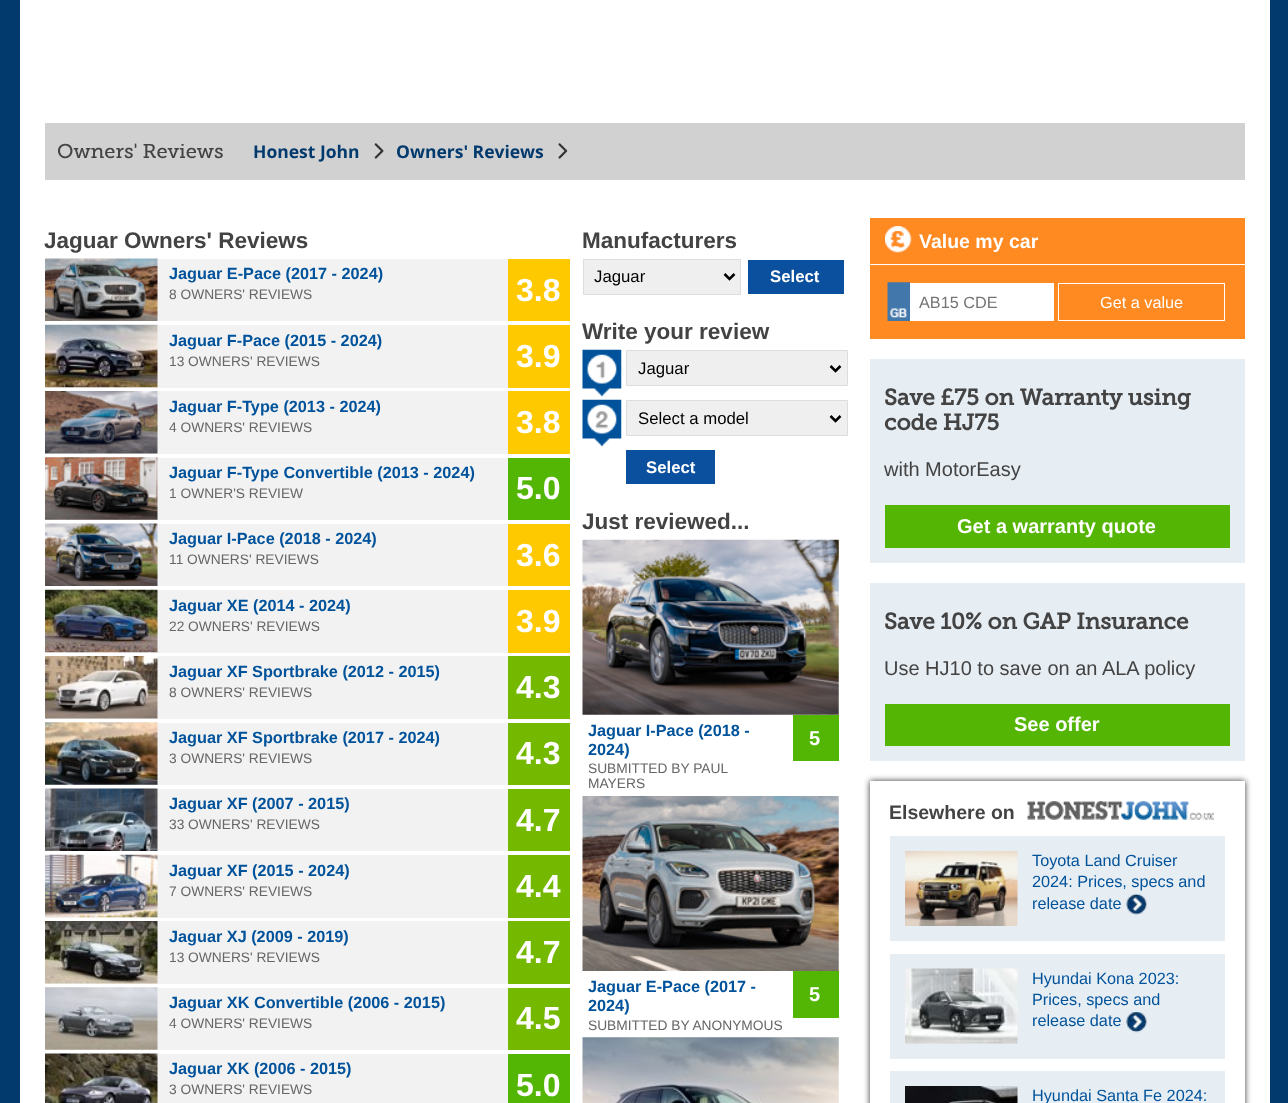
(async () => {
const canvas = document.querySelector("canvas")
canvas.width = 1288
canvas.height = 1103
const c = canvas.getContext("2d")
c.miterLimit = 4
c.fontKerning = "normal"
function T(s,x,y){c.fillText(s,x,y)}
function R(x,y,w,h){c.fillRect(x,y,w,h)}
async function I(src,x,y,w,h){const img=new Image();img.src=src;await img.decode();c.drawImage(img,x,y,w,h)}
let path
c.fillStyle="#023a6d"
R(0,0,1288,1103)
c.fillStyle="#fff"
R(20,0,1250,1103)
c.fillStyle="#d1d1d1"
R(45,123,1200,57)
c.font="20px Museo Slab"
c.fillStyle="#434343"
T("Owners' Reviews",57,158)
c.font="bold 17.5px Open Sans"
c.fillStyle="#023a6d"
T("Honest John",253,158)
await I("1.png",374,143,10,16)
T("Owners' Reviews",396,158)
await I("2.png",558,143,10,16)
c.font="bold 22.5px Liberation Sans"
c.fillStyle="#434343"
T("Jaguar Owners' Reviews",44,248)
c.fillStyle="#f2f2f2"
R(157,259,351,62)
await I("3.png",45,258,113,63)
c.font="bold 16.25px Liberation Sans"
c.fillStyle="#00529b"
T("Jaguar E-Pace (2017 - 2024)",169,279)
c.font="13.75px Liberation Sans"
c.fillStyle="#666"
T("8 OWNERS' REVIEWS",169,299)
c.fillStyle="#ffc900"
R(508,259,62,62)
c.font="bold 32px Liberation Sans"
c.fillStyle="#fff"
T("3.8",516,301)
c.fillStyle="#f2f2f2"
R(45,325,463,63)
await I("4.png",45,324,113,64)
c.font="bold 16.25px Liberation Sans"
c.fillStyle="#00529b"
T("Jaguar F-Pace (2015 - 2024)",169,346)
c.font="13.75px Liberation Sans"
c.fillStyle="#666"
T("13 OWNERS' REVIEWS",169,366)
c.fillStyle="#ffc900"
R(508,325,62,63)
c.font="bold 32px Liberation Sans"
c.fillStyle="#fff"
T("3.9",516,367)
c.fillStyle="#f2f2f2"
R(45,391,463,63)
await I("5.png",45,391,113,63)
c.font="bold 16.25px Liberation Sans"
c.fillStyle="#00529b"
T("Jaguar F-Type (2013 - 2024)",169,412)
c.font="13.75px Liberation Sans"
c.fillStyle="#666"
T("4 OWNERS' REVIEWS",169,432)
c.fillStyle="#ffc900"
R(508,391,62,63)
c.font="bold 32px Liberation Sans"
c.fillStyle="#fff"
T("3.8",516,433)
c.fillStyle="#f2f2f2"
R(45,458,463,62)
await I("6.png",45,457,113,63)
c.font="bold 16.25px Liberation Sans"
c.fillStyle="#00529b"
T("Jaguar F-Type Convertible (2013 - 2024)",169,478)
c.font="13.75px Liberation Sans"
c.fillStyle="#666"
T("1 OWNER'S REVIEW",169,498)
c.fillStyle="#54b604"
R(508,458,62,62)
c.font="bold 32px Liberation Sans"
c.fillStyle="#fff"
T("5.0",516,499)
c.fillStyle="#f2f2f2"
R(157,524,351,62)
await I("7.png",45,523,113,63)
c.font="bold 16.25px Liberation Sans"
c.fillStyle="#00529b"
T("Jaguar I-Pace (2018 - 2024)",169,544)
c.font="13.75px Liberation Sans"
c.fillStyle="#666"
T("11 OWNERS' REVIEWS",169,564)
c.fillStyle="#ffc900"
R(508,524,62,62)
c.font="bold 32px Liberation Sans"
c.fillStyle="#fff"
T("3.6",516,566)
c.fillStyle="#f2f2f2"
R(45,590,463,63)
await I("8.png",45,589,113,64)
c.font="bold 16.25px Liberation Sans"
c.fillStyle="#00529b"
T("Jaguar XE (2014 - 2024)",169,611)
c.font="13.75px Liberation Sans"
c.fillStyle="#666"
T("22 OWNERS' REVIEWS",169,631)
c.fillStyle="#ffc900"
R(508,590,62,63)
c.font="bold 32px Liberation Sans"
c.fillStyle="#fff"
T("3.9",516,632)
c.fillStyle="#f2f2f2"
R(45,656,463,63)
await I("9.png",45,656,113,63)
c.font="bold 16.25px Liberation Sans"
c.fillStyle="#00529b"
T("Jaguar XF Sportbrake (2012 - 2015)",169,677)
c.font="13.75px Liberation Sans"
c.fillStyle="#666"
T("8 OWNERS' REVIEWS",169,697)
c.fillStyle="#74b800"
R(508,656,62,63)
c.font="bold 32px Liberation Sans"
c.fillStyle="#fff"
T("4.3",516,698)
c.fillStyle="#f2f2f2"
R(45,723,463,62)
await I("10.png",45,722,113,63)
c.font="bold 16.25px Liberation Sans"
c.fillStyle="#00529b"
T("Jaguar XF Sportbrake (2017 - 2024)",169,743)
c.font="13.75px Liberation Sans"
c.fillStyle="#666"
T("3 OWNERS' REVIEWS",169,763)
c.fillStyle="#74b800"
R(508,723,62,62)
c.font="bold 32px Liberation Sans"
c.fillStyle="#fff"
T("4.3",516,764)
c.fillStyle="#f2f2f2"
R(157,789,351,62)
await I("11.png",45,788,113,63)
c.font="bold 16.25px Liberation Sans"
c.fillStyle="#00529b"
T("Jaguar XF (2007 - 2015)",169,809)
c.font="13.75px Liberation Sans"
c.fillStyle="#666"
T("33 OWNERS' REVIEWS",169,829)
c.fillStyle="#74b800"
R(508,789,62,62)
c.font="bold 32px Liberation Sans"
c.fillStyle="#fff"
T("4.7",516,831)
c.fillStyle="#f2f2f2"
R(45,855,463,63)
await I("12.png",45,854,113,64)
c.font="bold 16.25px Liberation Sans"
c.fillStyle="#00529b"
T("Jaguar XF (2015 - 2024)",169,876)
c.font="13.75px Liberation Sans"
c.fillStyle="#666"
T("7 OWNERS' REVIEWS",169,896)
c.fillStyle="#74b800"
R(508,855,62,63)
c.font="bold 32px Liberation Sans"
c.fillStyle="#fff"
T("4.4",516,897)
c.fillStyle="#f2f2f2"
R(45,921,463,63)
await I("13.png",45,921,113,63)
c.font="bold 16.25px Liberation Sans"
c.fillStyle="#00529b"
T("Jaguar XJ (2009 - 2019)",169,942)
c.font="13.75px Liberation Sans"
c.fillStyle="#666"
T("13 OWNERS' REVIEWS",169,962)
c.fillStyle="#74b800"
R(508,921,62,63)
c.font="bold 32px Liberation Sans"
c.fillStyle="#fff"
T("4.7",516,963)
c.fillStyle="#f2f2f2"
R(45,988,463,62)
await I("14.png",45,987,113,63)
c.font="bold 16.25px Liberation Sans"
c.fillStyle="#00529b"
T("Jaguar XK Convertible (2006 - 2015)",169,1008)
c.font="13.75px Liberation Sans"
c.fillStyle="#666"
T("4 OWNERS' REVIEWS",169,1028)
c.fillStyle="#74b800"
R(508,988,62,62)
c.font="bold 32px Liberation Sans"
c.fillStyle="#fff"
T("4.5",516,1029)
c.fillStyle="#f2f2f2"
R(157,1054,351,49)
await I("15.png",45,1053,113,50)
c.font="bold 16.25px Liberation Sans"
c.fillStyle="#00529b"
T("Jaguar XK (2006 - 2015)",169,1074)
c.font="13.75px Liberation Sans"
c.fillStyle="#666"
T("3 OWNERS' REVIEWS",169,1094)
c.fillStyle="#54b604"
R(508,1054,62,49)
c.font="bold 32px Liberation Sans"
c.fillStyle="#fff"
T("5.0",516,1096)
c.font="bold 22.5px Liberation Sans"
c.fillStyle="#434343"
T("Manufacturers",582,248)
c.fillStyle="#efefef"
c.beginPath()
c.rect(583.5,259.5,157,35)
c.fill()
c.strokeStyle="#ddd"
c.stroke()
path = new Path2D("M724.5 274l5 5l5-5")
c.strokeStyle="#000"
c.lineWidth=2.5
c.stroke(path)
c.font="16.75px Liberation Sans"
c.fillStyle="#000"
T("Jaguar",594,282)
c.fillStyle="#0b509e"
R(748,260,96,34)
c.font="bold 16.75px Liberation Sans"
c.fillStyle="#fff"
T("Select",770,282)
c.font="bold 22.5px Liberation Sans"
c.fillStyle="#434343"
T("Write your review",582,339)
await I("16.png",582,349,40,48)
c.fillStyle="#efefef"
c.beginPath()
c.rect(626.5,350.5,221,35)
c.fill()
c.strokeStyle="#ddd"
c.lineWidth=1
c.stroke()
path = new Path2D("M830.5 366l5 5l5-5")
c.strokeStyle="#000"
c.lineWidth=2.5
c.stroke(path)
c.font="16.75px Liberation Sans"
c.fillStyle="#000"
T("Jaguar",638,374)
await I("17.png",582,399,40,48)
c.fillStyle="#efefef"
c.beginPath()
c.rect(626.5,400.5,221,35)
c.fill()
c.strokeStyle="#ddd"
c.lineWidth=1
c.stroke()
path = new Path2D("M830.5 416l5 5l5-5")
c.strokeStyle="#000"
c.lineWidth=2.5
c.stroke(path)
c.fillStyle="#000"
T("Select a model",638,424)
c.fillStyle="#0b509e"
R(626,450,89,34)
c.font="bold 16.75px Liberation Sans"
c.fillStyle="#fff"
T("Select",646,473)
c.font="bold 22.5px Liberation Sans"
c.fillStyle="#434343"
T("Just reviewed...",582,529)
await I("18.png",582,539,257,176)
c.font="bold 16.25px Liberation Sans"
c.fillStyle="#00529b"
T("Jaguar I-Pace (2018 -",588,736)
T("2024)",588,755)
c.fillStyle="#54b604"
R(793,715,46,46)
c.font="bold 20px Liberation Sans"
c.fillStyle="#fff"
T("5",809,745)
c.font="13.75px Liberation Sans"
c.fillStyle="#666"
T("SUBMITTED BY PAUL",588,773)
T("MAYERS",588,788)
await I("19.png",582,796,257,175)
c.font="bold 16.25px Liberation Sans"
c.fillStyle="#00529b"
T("Jaguar E-Pace (2017 -",588,992)
T("2024)",588,1011)
c.fillStyle="#54b604"
R(793,971,46,47)
c.font="bold 20px Liberation Sans"
c.fillStyle="#fff"
T("5",809,1001)
c.font="13.75px Liberation Sans"
c.fillStyle="#666"
T("SUBMITTED BY ANONYMOUS",588,1030)
await I("20.png",582,1037,257,66)
c.fillStyle="#ff8a22"
R(870,218,375,121)
await I("21.png",885,226,27,27)
c.font="bold 19.5px Liberation Sans"
c.fillStyle="#fff"
T("Value my car",919,248)
R(870,264,375,1)
R(910,283,144,38)
await I("22.png",887,282,23,39)
c.font="16.25px Liberation Sans"
c.fillStyle="#757575"
T("AB15 CDE",919,308)
c.strokeStyle="#fff"
c.lineWidth=1
c.strokeRect(1058.5,283.5,166,37)
c.fillStyle="#fff"
T("Get a value",1100,308)
c.fillStyle="#e6edf3"
R(870,359,375,204)
c.font="bold 22.5px Museo Slab"
c.fillStyle="#434343"
T("Save £75 on Warranty using",884,405)
T("code HJ75",884,430)
c.font="20px Liberation Sans"
T("with MotorEasy",884,476)
c.fillStyle="#54b504"
R(885,505,345,43)
c.font="bold 20px Liberation Sans"
c.fillStyle="#fff"
T("Get a warranty quote",957,533)
c.fillStyle="#e6edf3"
R(870,583,375,178)
c.font="bold 22.5px Museo Slab"
c.fillStyle="#434343"
T("Save 10% on GAP Insurance",884,629)
c.font="20px Liberation Sans"
T("Use HJ10 to save on an ALA policy",884,675)
c.fillStyle="#54b504"
R(885,704,345,42)
c.font="bold 20px Liberation Sans"
c.fillStyle="#fff"
T("See offer",1014,731)
c.fillStyle="#333"
c.filter="blur(3px)"
c.beginPath()
c.rect(870,781,375,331)
c.fill()
c.filter="none"
c.fillStyle="#fff"
R(870,781,375,322)
c.font="bold 19.5px Liberation Sans"
c.fillStyle="#434343"
T("Elsewhere on",889,819)
await I("23.png",1027,801,187,19)
c.fillStyle="#e6edf3"
R(890,836,335,105)
await I("24.png",905,851,113,75)
c.font="16.25px Liberation Sans"
c.fillStyle="#00529b"
T("Toyota Land Cruiser",1032,866)
T("2024: Prices, specs and",1032,887)
T("release date",1032,909)
await I("25.png",1126,893,21,22)
c.fillStyle="#e6edf3"
R(890,954,335,105)
await I("26.png",905,968,113,76)
c.fillStyle="#00529b"
T("Hyundai Kona 2023:",1032,984)
T("Prices, specs and",1032,1005)
T("release date",1032,1026)
await I("27.png",1126,1011,21,22)
c.fillStyle="#e6edf3"
R(890,1071,335,32)
await I("28.png",905,1086,113,17)
c.fillStyle="#00529b"
T("Hyundai Santa Fe 2024:",1032,1101)
})()
